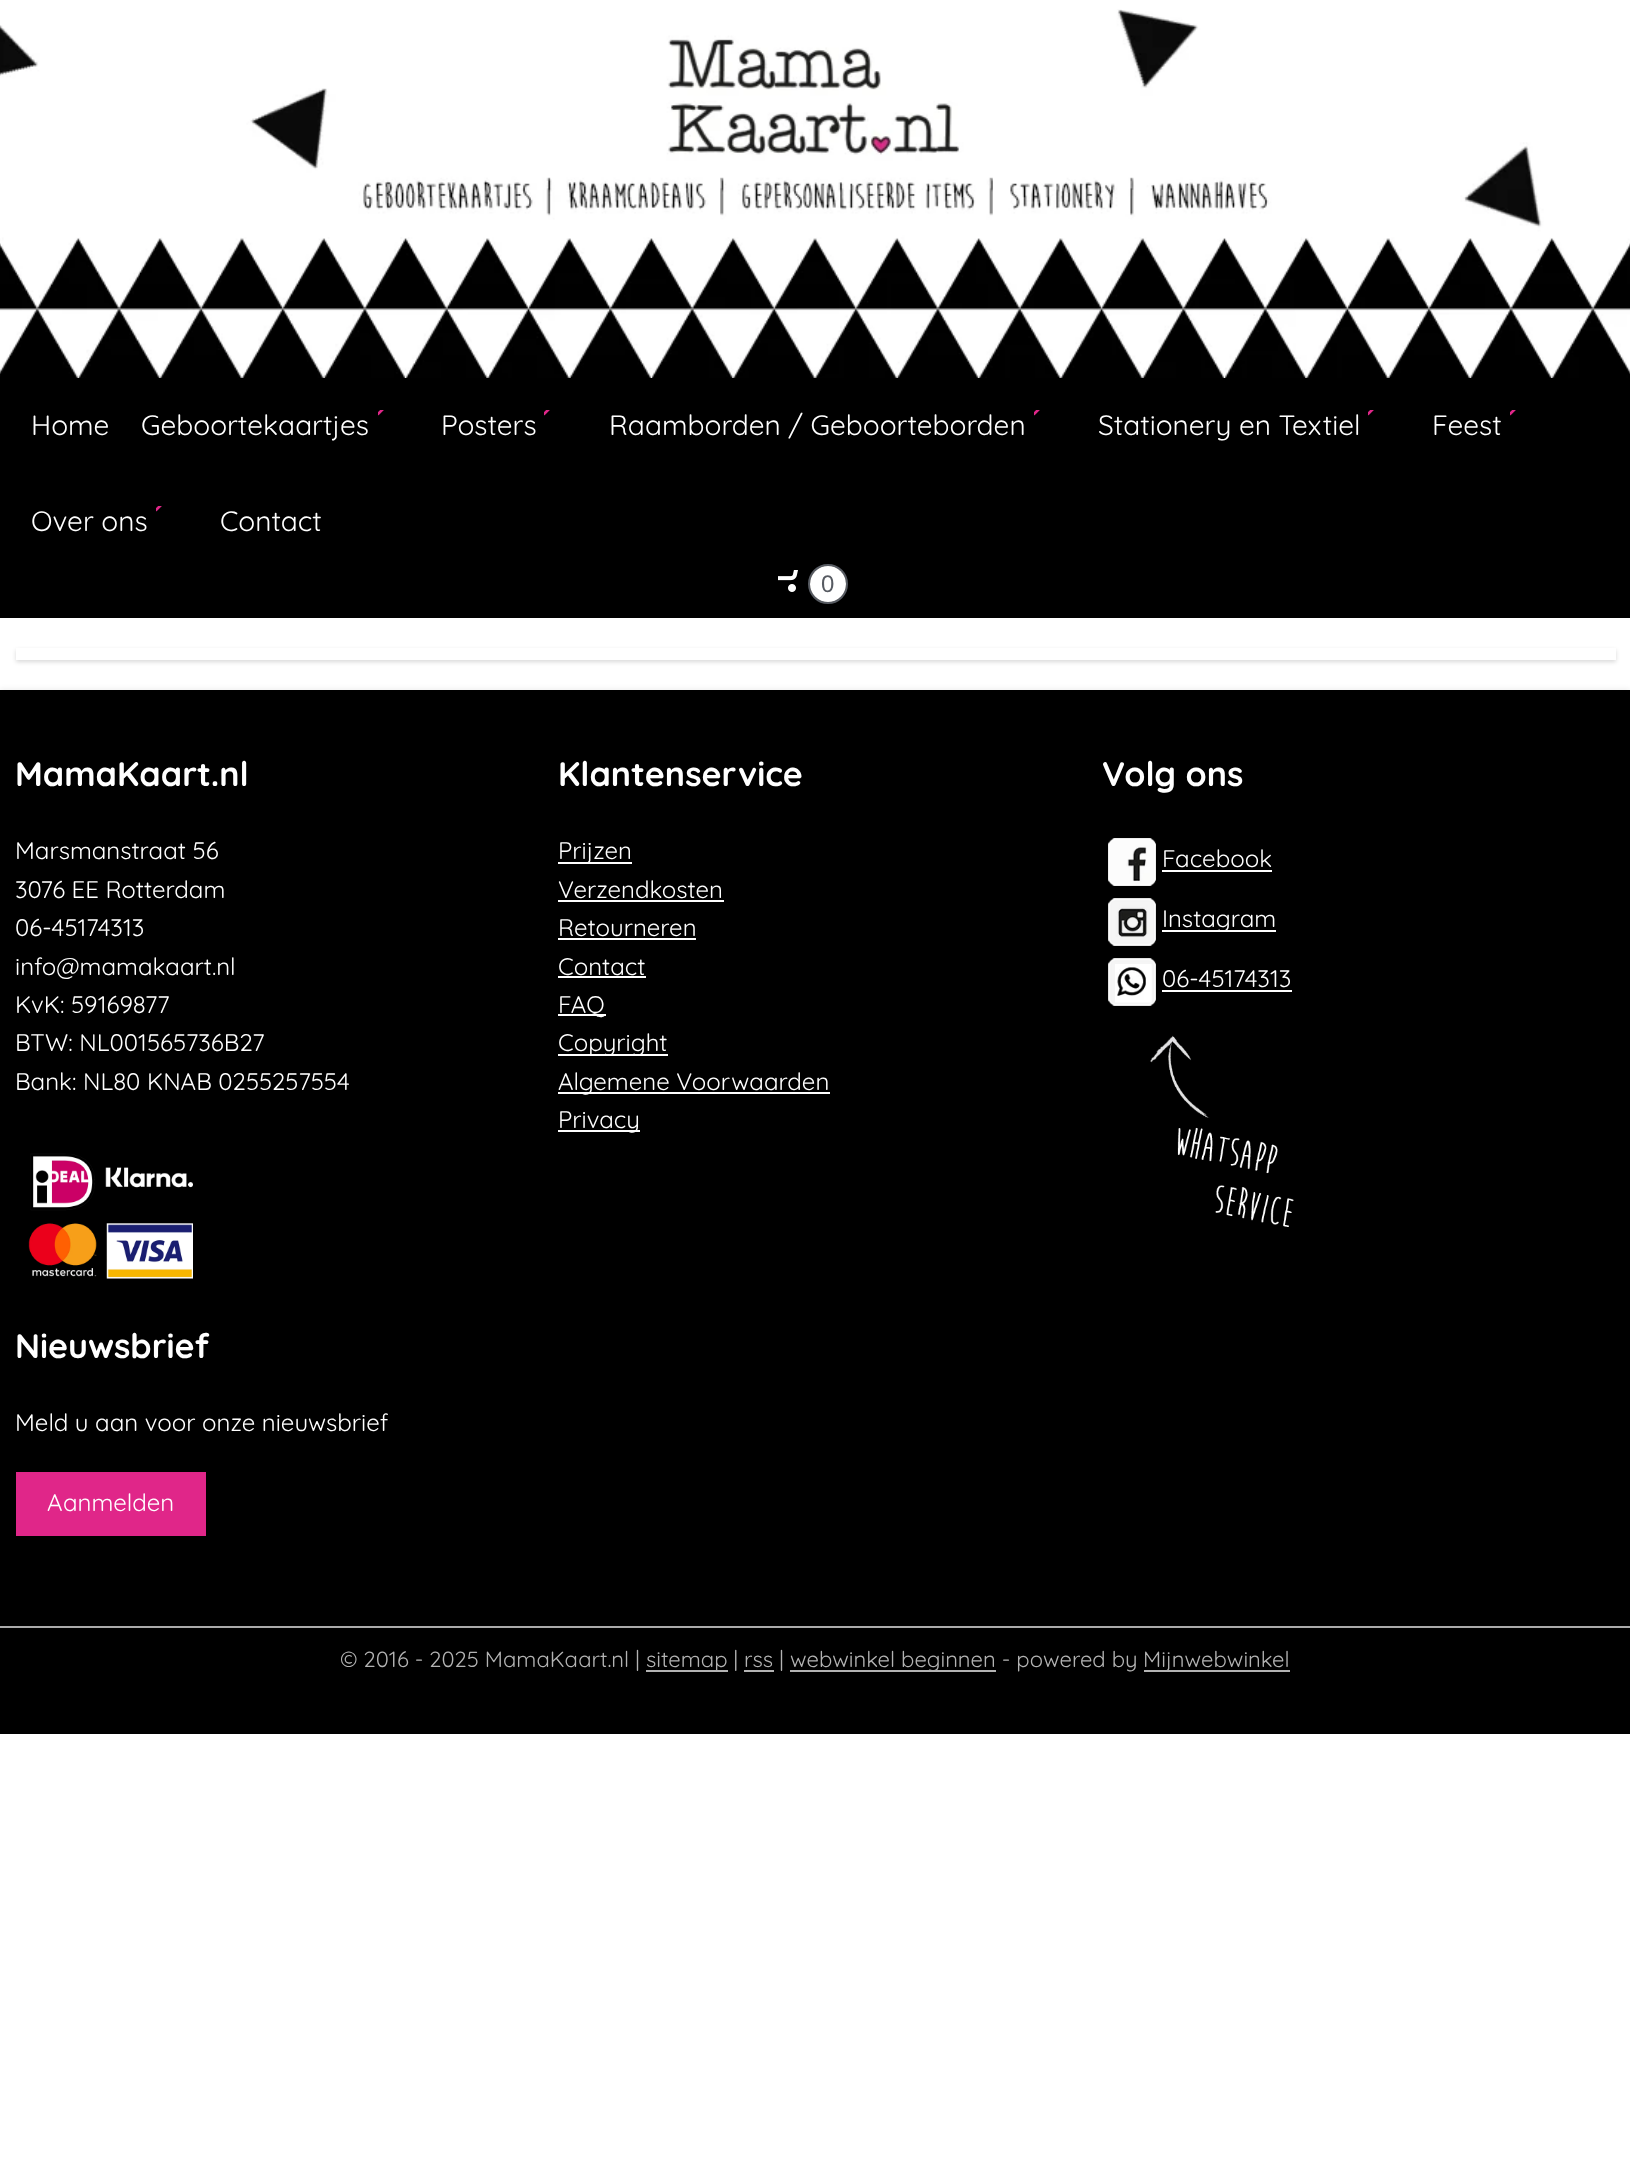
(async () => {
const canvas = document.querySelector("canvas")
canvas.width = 1630
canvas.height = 2163
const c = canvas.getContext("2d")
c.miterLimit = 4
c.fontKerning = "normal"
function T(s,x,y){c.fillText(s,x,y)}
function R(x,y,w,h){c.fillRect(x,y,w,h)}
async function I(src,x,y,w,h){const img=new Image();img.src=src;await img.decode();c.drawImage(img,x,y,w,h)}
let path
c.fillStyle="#fff"
R(0,0,1630,2163)
await I("1.png",0,9,1630,369)
c.fillStyle="#000"
R(0,378,1630,240)
c.font="28px Quicksand"
c.fillStyle="#fff"
T("Home",31,435)
await I("2.png",378,410,6,6)
T("Geboortekaartjes",141,435)
await I("2.png",544,410,6,6)
T("Posters",441,435)
T("Raamborden / Geboorteborden",609,435)
await I("2.png",1034,410,6,6)
await I("2.png",1368,410,6,6)
T("Stationery en Textiel",1098,435)
await I("2.png",1510,410,6,6)
T("Feest",1432,435)
await I("2.png",156,506,6,6)
T("Over ons",31,531)
T("Contact",220,531)
await I("3.png",778,570,20,22)
c.beginPath()
c.arc(828,584,19,0,7)
c.strokeStyle="#575b62"
c.lineWidth=2
c.stroke()
c.beginPath()
c.arc(828,584,18,0,7)
c.fill()
c.font="24px Liberation Sans"
c.fillStyle="#575b62"
T("0",821,592)
c.save()
path = new Path2D("M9 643h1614v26h-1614zm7 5h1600v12h-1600z")
c.clip(path,"evenodd")
c.fillStyle="#00000026"
c.filter="blur(2px)"
c.beginPath()
c.rect(16,650,1600,12)
c.fill()
c.filter="none"
c.restore()
c.fillStyle="#0000000d"
c.filter="blur(2px)"
c.beginPath()
c.rect(0,688,1630,936)
c.fill()
c.filter="none"
c.fillStyle="#000"
R(0,690,1630,936)
c.font="bold 34px Quicksand"
c.fillStyle="#fff"
T("MamaKaart.nl",15,786)
c.font="24px Quicksand"
T("Marsmanstraat 56",15,859)
T("3076 EE Rotterdam",15,898)
T("06-45174313",15,936)
T("info@mamakaart.nl",15,975)
T("KvK: 59169877",15,1013)
T("BTW: NL001565736B27",15,1051)
T("Bank: NL80 KNAB 0255257554",15,1090)
await I("4.png",28,1153,165,126)
c.font="bold 34px Quicksand"
T("Klantenservice",558,786)
R(558,862,74,2)
c.font="24px Quicksand"
T("Prijzen",558,859)
T("Verzendkosten",558,898)
R(558,900,166,2)
T("Retourneren",558,936)
R(558,938,138,2)
T("Contact",558,975)
R(558,976,88,2)
R(558,1014,48,2)
T("FAQ",558,1013)
R(558,1054,110,2)
T("Copyright",558,1051)
R(558,1092,272,2)
T("Algemene Voorwaarden",558,1090)
R(558,1130,82,2)
T("Privacy",558,1128)
c.font="bold 34px Quicksand"
T("Volg ons",1102,786)
await I("5.png",1108,838,48,48)
c.font="24px Quicksand"
T("Facebook",1162,867)
R(1162,870,110,2)
await I("6.png",1108,898,48,48)
R(1162,930,114,2)
T("Instagram",1162,927)
await I("7.png",1108,958,48,48)
T("06-45174313",1162,987)
R(1162,990,130,2)
await I("8.png",1150,1035,144,192)
c.font="bold 34px Quicksand"
T("Nieuwsbrief",15,1358)
c.font="24px Quicksand"
T("Meld u aan voor onze nieuwsbrief",15,1431)
c.fillStyle="#e02689"
R(16,1472,190,64)
c.fillStyle="#fff"
T("Aanmelden",47,1511)
c.fillStyle="#000"
R(0,1628,1630,106)
c.fillStyle="#aaa"
R(0,1626,1630,2)
c.font="22px Quicksand"
c.fillStyle="#b3b3b3"
T("© 2016 - 2025 MamaKaart.nl |",340,1667)
R(646,1670,82,2)
T("sitemap | rss |",646,1667)
R(790,1670,206,2)
T("webwinkel beginnen - powered by",790,1667)
R(1144,1670,146,2)
T("Mijnwebwinkel",1143,1667)
R(744,1670,30,2)
})()
